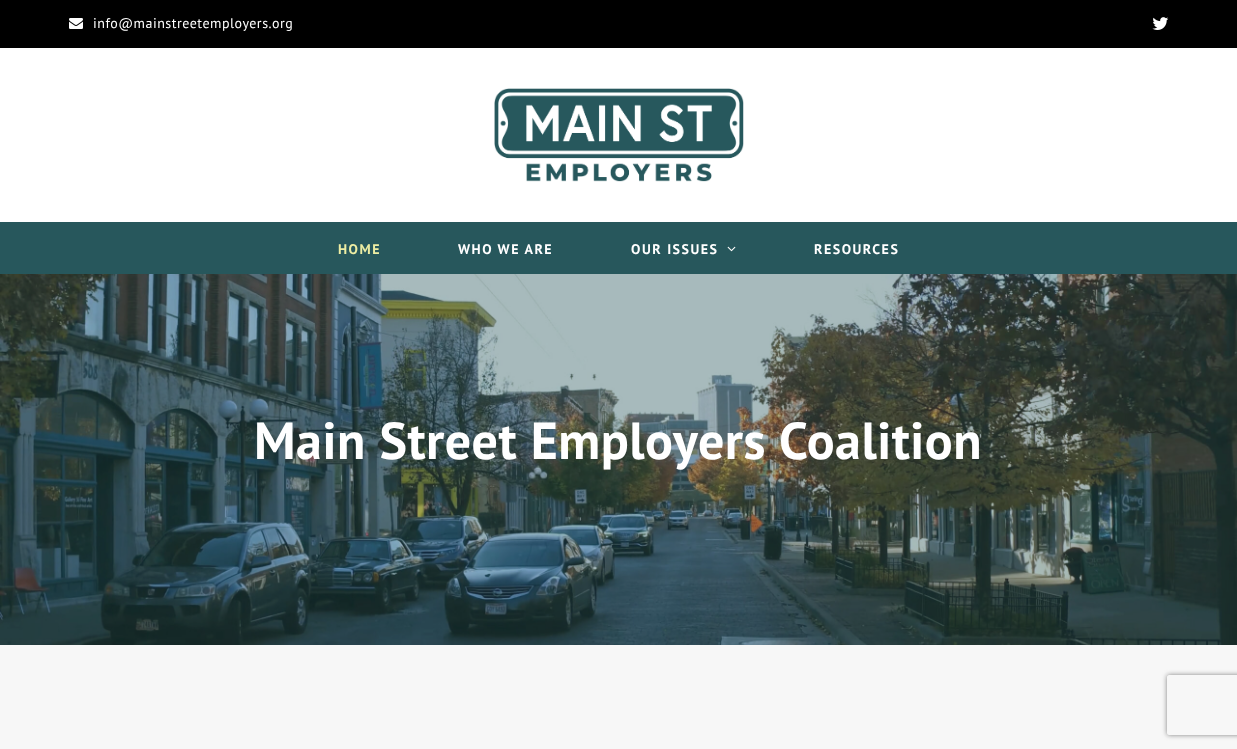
(async () => {
const canvas = document.querySelector("canvas")
canvas.width = 1237
canvas.height = 749
const c = canvas.getContext("2d")
c.miterLimit = 4
c.fontKerning = "normal"
function T(s,x,y){c.fillText(s,x,y)}
function R(x,y,w,h){c.fillRect(x,y,w,h)}
async function I(src,x,y,w,h){const img=new Image();img.src=src;await img.decode();c.drawImage(img,x,y,w,h)}
let path
c.fillStyle="#fff"
R(0,0,1237,749)
c.fillStyle="#000"
R(0,0,1237,48)
await I("1.png",69,18,14,11)
c.letterSpacing="0.5px"
c.font="14px PT Sans"
c.fillStyle="#fff"
T("info@mainstreetemployers.org",93,28)
await I("2.png",1152,17,17,13)
await I("3.png",494,88,250,94)
c.fillStyle="#27575c"
R(0,222,1237,52)
c.letterSpacing="1.5px"
c.font="bold 14px PT Sans"
c.fillStyle="#ededa3"
T("HOME",338,254)
c.fillStyle="#fff"
T("WHO WE ARE",458,254)
T("OUR ISSUES",631,254)
await I("4.png",727,246,9,6)
T("RESOURCES",814,254)
await I("5.png",0,274,1237,371)
c.letterSpacing="0.5px"
c.font="bold 52px PT Sans"
T("Main Street Employers Coalition",254,459)
c.fillStyle="#f7f7f7"
R(0,645,1237,104)
c.save()
path = new Path2D("M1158 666h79v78h-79zm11 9h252c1 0 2 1 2 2v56c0 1-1 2-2 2h-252c-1 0-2-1-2-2v-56c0-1 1-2 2-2z")
c.clip(path,"evenodd")
c.fillStyle="#808080"
c.filter="blur(2.5px)"
c.beginPath()
c.roundRect(1167,675,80,60,2)
c.fill()
c.filter="none"
c.restore()
})()
